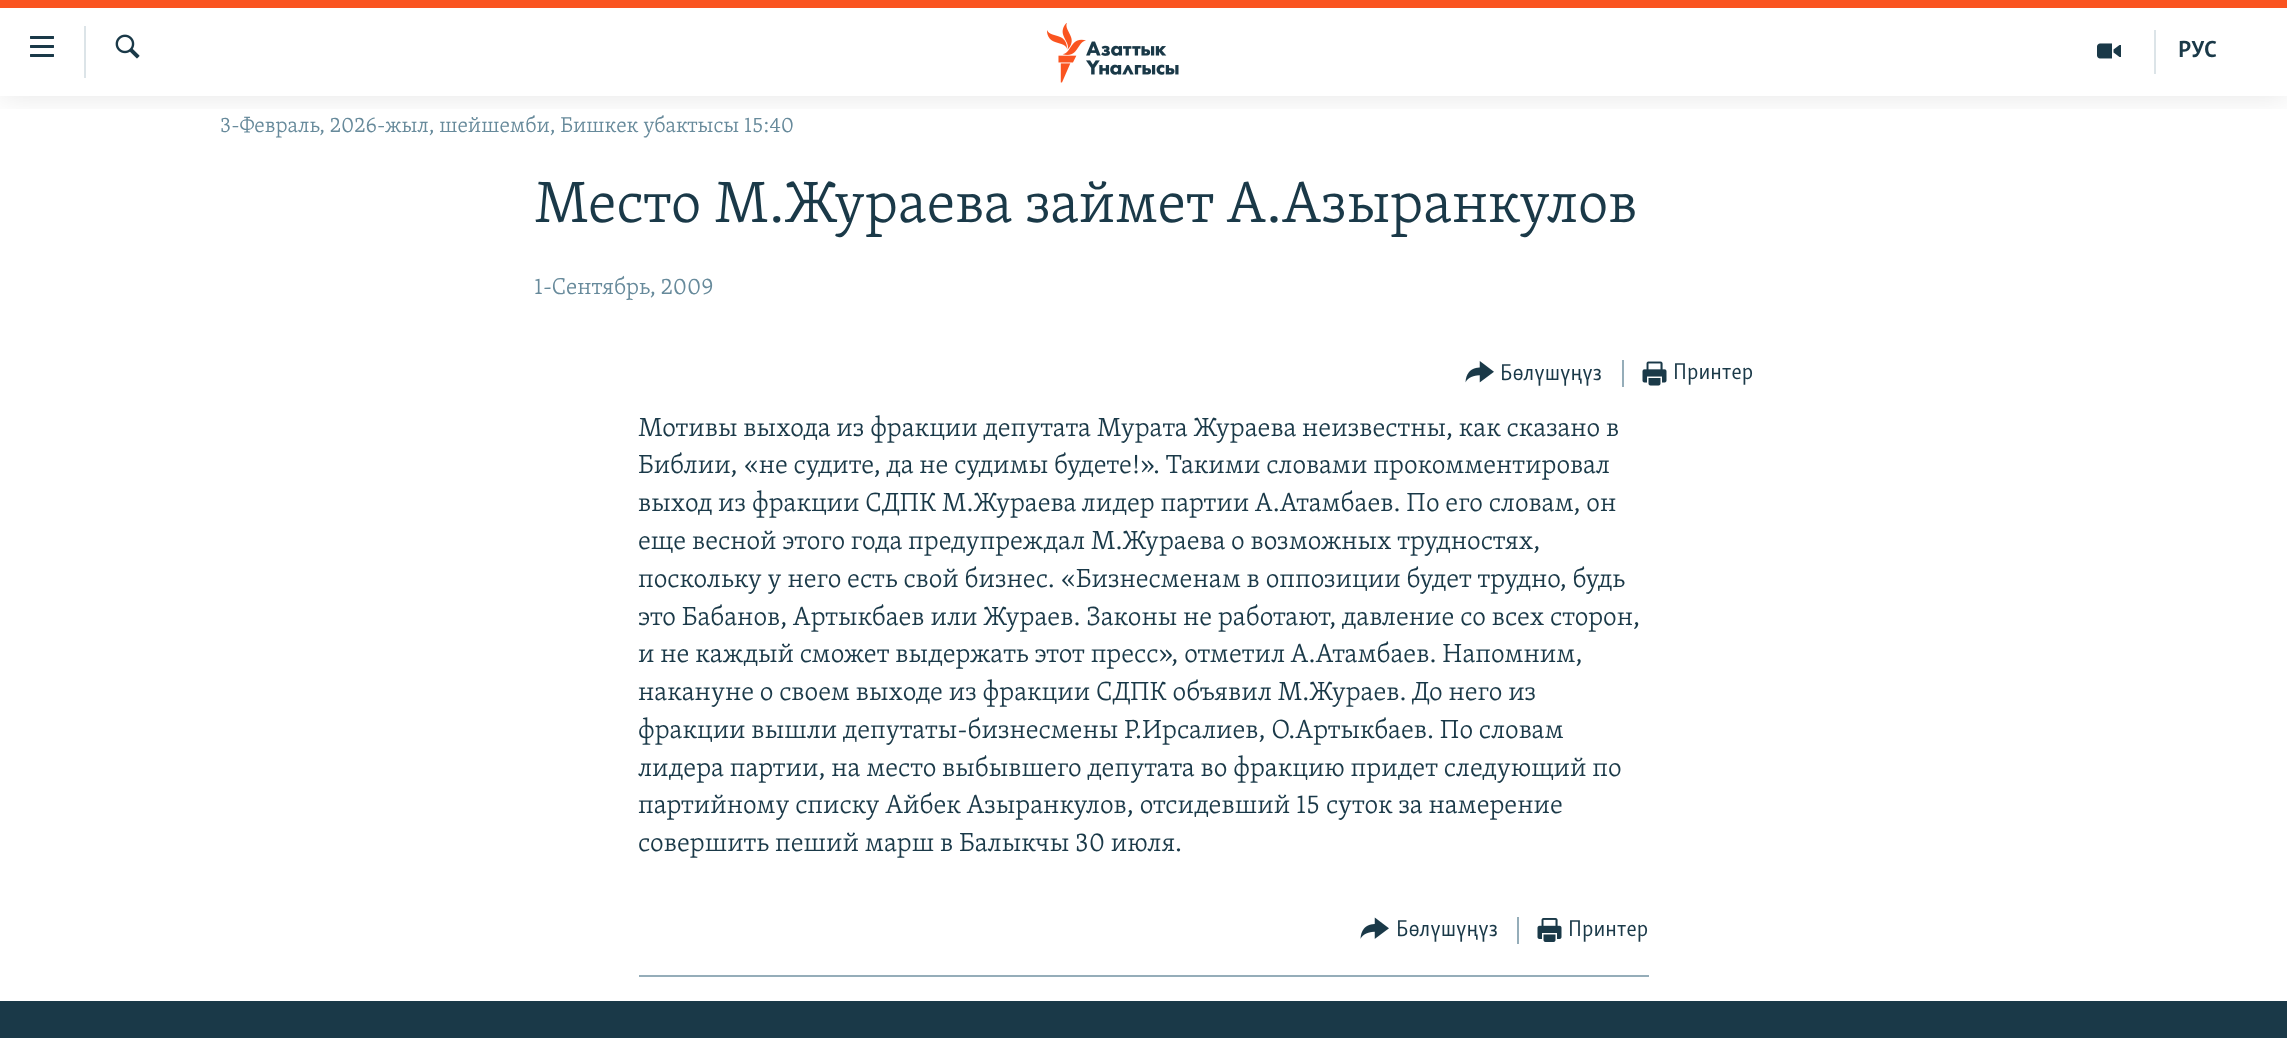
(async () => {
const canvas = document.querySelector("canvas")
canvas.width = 2287
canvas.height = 1038
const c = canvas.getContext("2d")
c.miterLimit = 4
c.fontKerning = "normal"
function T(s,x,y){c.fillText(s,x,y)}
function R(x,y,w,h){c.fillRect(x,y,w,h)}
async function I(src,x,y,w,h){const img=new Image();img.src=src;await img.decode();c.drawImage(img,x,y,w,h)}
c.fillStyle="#fff"
R(0,0,2287,1038)
c.save()
c.beginPath()
c.rect(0,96,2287,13)
c.clip()
c.fillStyle="#0000001a"
c.filter="blur(15px)"
c.beginPath()
c.rect(0,0,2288,96)
c.fill()
c.filter="none"
c.restore()
c.fillStyle="#fa5420"
R(0,0,2287,8)
await I("1.png",30,36,24,21)
c.fillStyle="#dce4e8"
R(84,26,2,52)
await I("2.png",115,34,25,25)
await I("3.png",1047,23,132,60)
R(2154,30,2,44)
await I("4.png",2097,43,24,16)
c.font="bold 24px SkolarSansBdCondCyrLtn"
c.fillStyle="#1a3948"
T("РУС",2178,57)
c.font="300 21.95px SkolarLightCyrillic"
c.fillStyle="#678a9b"
T("3-Февраль, 2026-жыл, шейшемби, Бишкек убактысы 15:40",220,132)
c.font="300 59.9px SkolarLightCyrillic"
c.fillStyle="#1a3948"
T("Место М.Жураева займет А.Азыранкулов",534,222)
c.font="300 23.5px SkolarLightCyrillic"
c.fillStyle="#678a9b"
T("1-Сентябрь, 2009",534,294)
await I("5.png",1465,361,29,22)
c.font="23.5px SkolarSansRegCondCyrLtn"
c.fillStyle="#1a3948"
T("Бөлүшүңүз",1500,380)
c.fillStyle="#95adb9"
R(1622,360,2,27)
await I("6.png",1642,361,25,25)
c.fillStyle="#1a3948"
T("Принтер",1673,379)
c.font="300 27px SkolarLightCyrillic"
T("Мотивы выхода из фракции депутата Мурата Жураева неизвестны, как сказано в",638,436)
T("Библии, «не судите, да не судимы будете!». Такими словами прокомментировал",638,473)
T("выход из фракции СДПК М.Жураева лидер партии А.Атамбаев. По его словам, он",638,511)
T("еще весной этого года предупреждал М.Жураева о возможных трудностях,",638,549)
T("поскольку у него есть свой бизнес. «Бизнесменам в оппозиции будет трудно, будь",638,587)
T("это Бабанов, Артыкбаев или Жураев. Законы не работают, давление со всех сторон,",638,625)
T("и не каждый сможет выдержать этот пресс», отметил А.Атамбаев. Напомним,",638,662)
T("накануне о своем выходе из фракции СДПК объявил М.Жураев. До него из",638,700)
T("фракции вышли депутаты-бизнесмены Р.Ирсалиев, О.Артыкбаев. По словам",638,738)
T("лидера партии, на место выбывшего депутата во фракцию придет следующий по",638,776)
T("партийному списку Айбек Азыранкулов, отсидевший 15 суток за намерение",638,813)
T("совершить пеший марш в Балыкчы 30 июля.",638,851)
c.fillStyle="#95adb9"
R(639,975,1010,2)
await I("7.png",1360,917,29,22)
c.font="23.5px SkolarSansRegCondCyrLtn"
c.fillStyle="#1a3948"
T("Бөлүшүңүз",1396,936)
c.fillStyle="#95adb9"
R(1517,917,2,27)
await I("8.png",1537,918,25,24)
c.fillStyle="#1a3948"
T("Принтер",1568,936)
R(0,1001,2287,37)
})()
